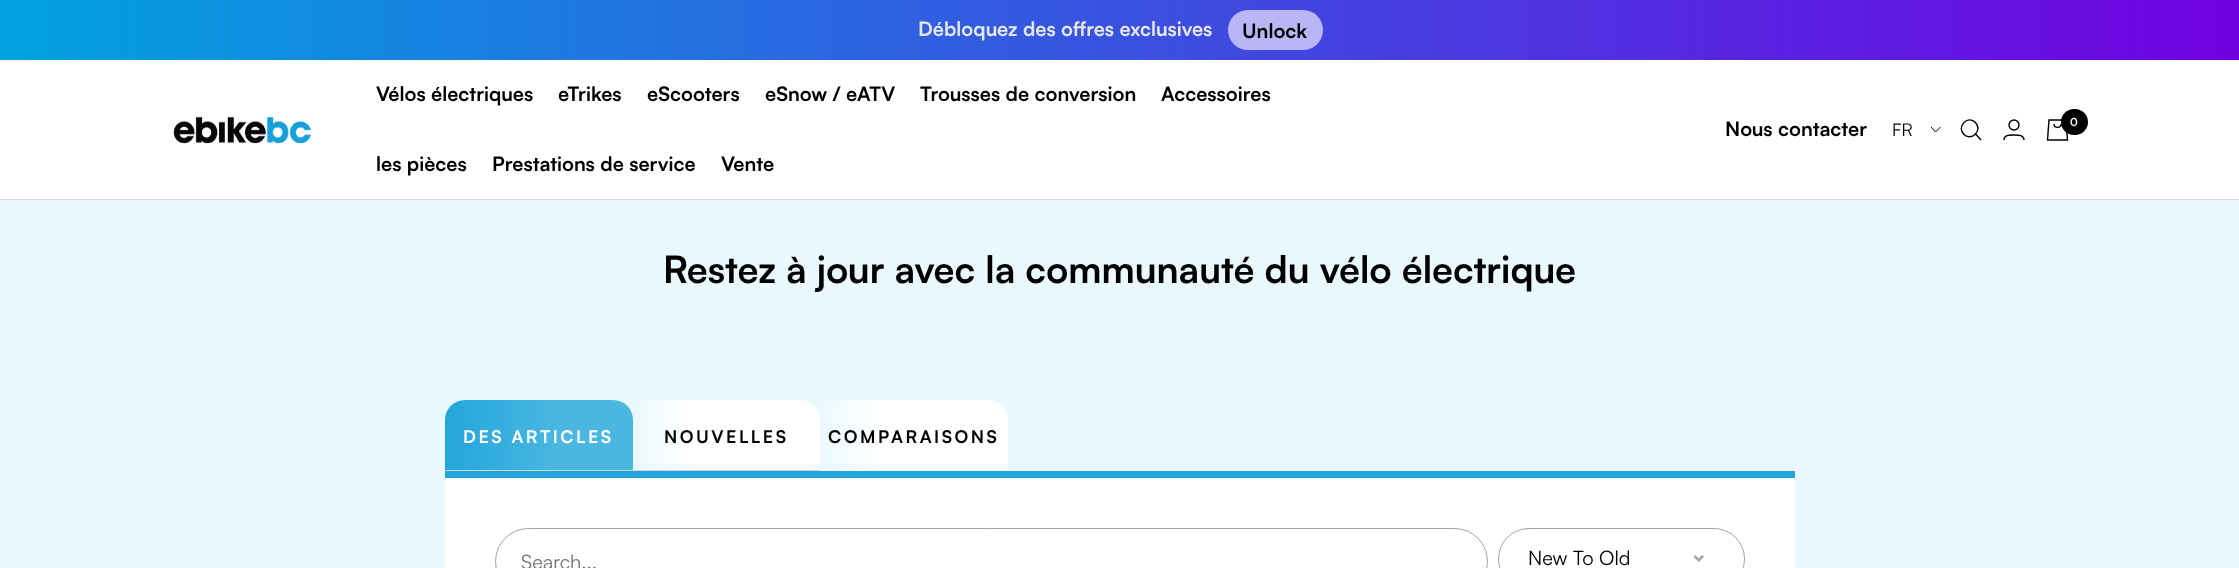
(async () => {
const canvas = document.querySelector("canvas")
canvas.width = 2239
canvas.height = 568
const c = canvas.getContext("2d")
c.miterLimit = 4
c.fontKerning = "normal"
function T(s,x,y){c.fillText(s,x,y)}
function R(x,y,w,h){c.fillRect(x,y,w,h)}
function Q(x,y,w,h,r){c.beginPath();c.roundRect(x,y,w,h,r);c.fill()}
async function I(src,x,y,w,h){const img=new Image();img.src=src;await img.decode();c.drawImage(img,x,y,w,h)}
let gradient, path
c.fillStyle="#fff"
R(0,0,2239,568)
gradient = c.createLinearGradient(0,30,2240,30)
gradient.addColorStop(0,"#01a2e0")
gradient.addColorStop(1,"#7101e0")
c.fillStyle = gradient
R(0,0,2239,60)
c.font="bold 20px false"
c.fillStyle="#e5e7eb"
T("Débloquez des offres exclusives",918,36)
c.fillStyle="#bab5f5"
Q(1228,10,95,40,20)
c.fillStyle="#000"
T("Unlock",1242,38)
c.fillStyle="#d9d9d9"
R(0,199,2239,1)
await I("1.png",173,116,138,28)
c.fillStyle="#000"
T("Vélos électriques",376,101)
T("eTrikes",558,101)
T("eScooters",647,101)
T("eSnow / eATV",765,101)
T("Trousses de conversion",920,101)
T("Accessoires",1161,101)
T("les pièces",376,171)
T("Prestations de service",492,171)
T("Vente",721,171)
T("Nous contacter",1725,136)
c.font="17.5px false"
T("FR",1892,136)
path = new Path2D("M1931 127l4.5 5l5-5")
c.strokeStyle="#000"
c.stroke(path)
path = new Path2D("M1975.5 134c7.5-7.5-4-19.5-11.5-11.5c-8 8 3.5 19.5 11.5 11.5zm0 0l5.5 6")
c.lineWidth=1.4
c.stroke(path)
c.beginPath()
c.arc(2014,125,5,0,7)
c.stroke()
path = new Path2D("M2004 140c0-5.5 6-5 10-5c3.5 0 10-.5 10 5")
c.stroke(path)
path = new Path2D("M2049 120h17l1.5 20h-20zm5 4c0 4.5 7 4.5 7 0")
c.stroke(path)
Q(2061,109,27,26,13)
c.font="bold 11px false"
c.fillStyle="#fff"
T("0",2070,126)
c.fillStyle="#eaf9ff"
R(0,200,2239,368)
c.fillStyle="#22a6da"
R(445,471,1350,7)
c.font="bold 37.5px false"
c.fillStyle="#000"
T("Restez à jour avec la communauté du vélo électrique",663,283)
c.fillStyle="#d1d5db"
R(445,470,375,1)
gradient = c.createLinearGradient(445,435,633,435)
gradient.addColorStop(0,"#22a6da")
gradient.addColorStop(.6,"#4ab7e1")
c.fillStyle = gradient
c.beginPath()
c.roundRect(445,400,188,70,[20,20,0,0])
c.fill()
c.letterSpacing="2.5px"
c.font="bold 17.5px false"
c.fillStyle="#fff"
T("DES ARTICLES",463,443)
gradient = c.createLinearGradient(820,435,633,435)
gradient.addColorStop(.7,"#fff")
gradient.addColorStop(1,"#eaf9ff")
c.fillStyle = gradient
c.beginPath()
c.roundRect(633,400,187,70,[20,20,0,0])
c.fill()
c.fillStyle="#000"
T("NOUVELLES",664,443)
gradient = c.createLinearGradient(1008,435,820,435)
gradient.addColorStop(.7,"#fff")
gradient.addColorStop(1,"#eaf9ff")
c.fillStyle = gradient
c.beginPath()
c.roundRect(820,400,188,70,[20,20,0,0])
c.fill()
c.fillStyle="#000"
T("COMPARAISONS",828,443)
c.fillStyle="#fff"
R(445,478,1350,90)
c.beginPath()
c.roundRect(495.5,528.5,992,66,33)
c.strokeStyle="#9ca3af"
c.lineWidth=1
c.stroke()
c.letterSpacing="0px"
c.font="20px false"
c.fillStyle="#757575"
T("Search...",521,569)
c.beginPath()
c.roundRect(1498.5,528.5,246,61,30.5)
c.stroke()
c.fillStyle="#000"
T("New To Old",1528,565)
await I("2.png",1693,555,11,7)
})()
